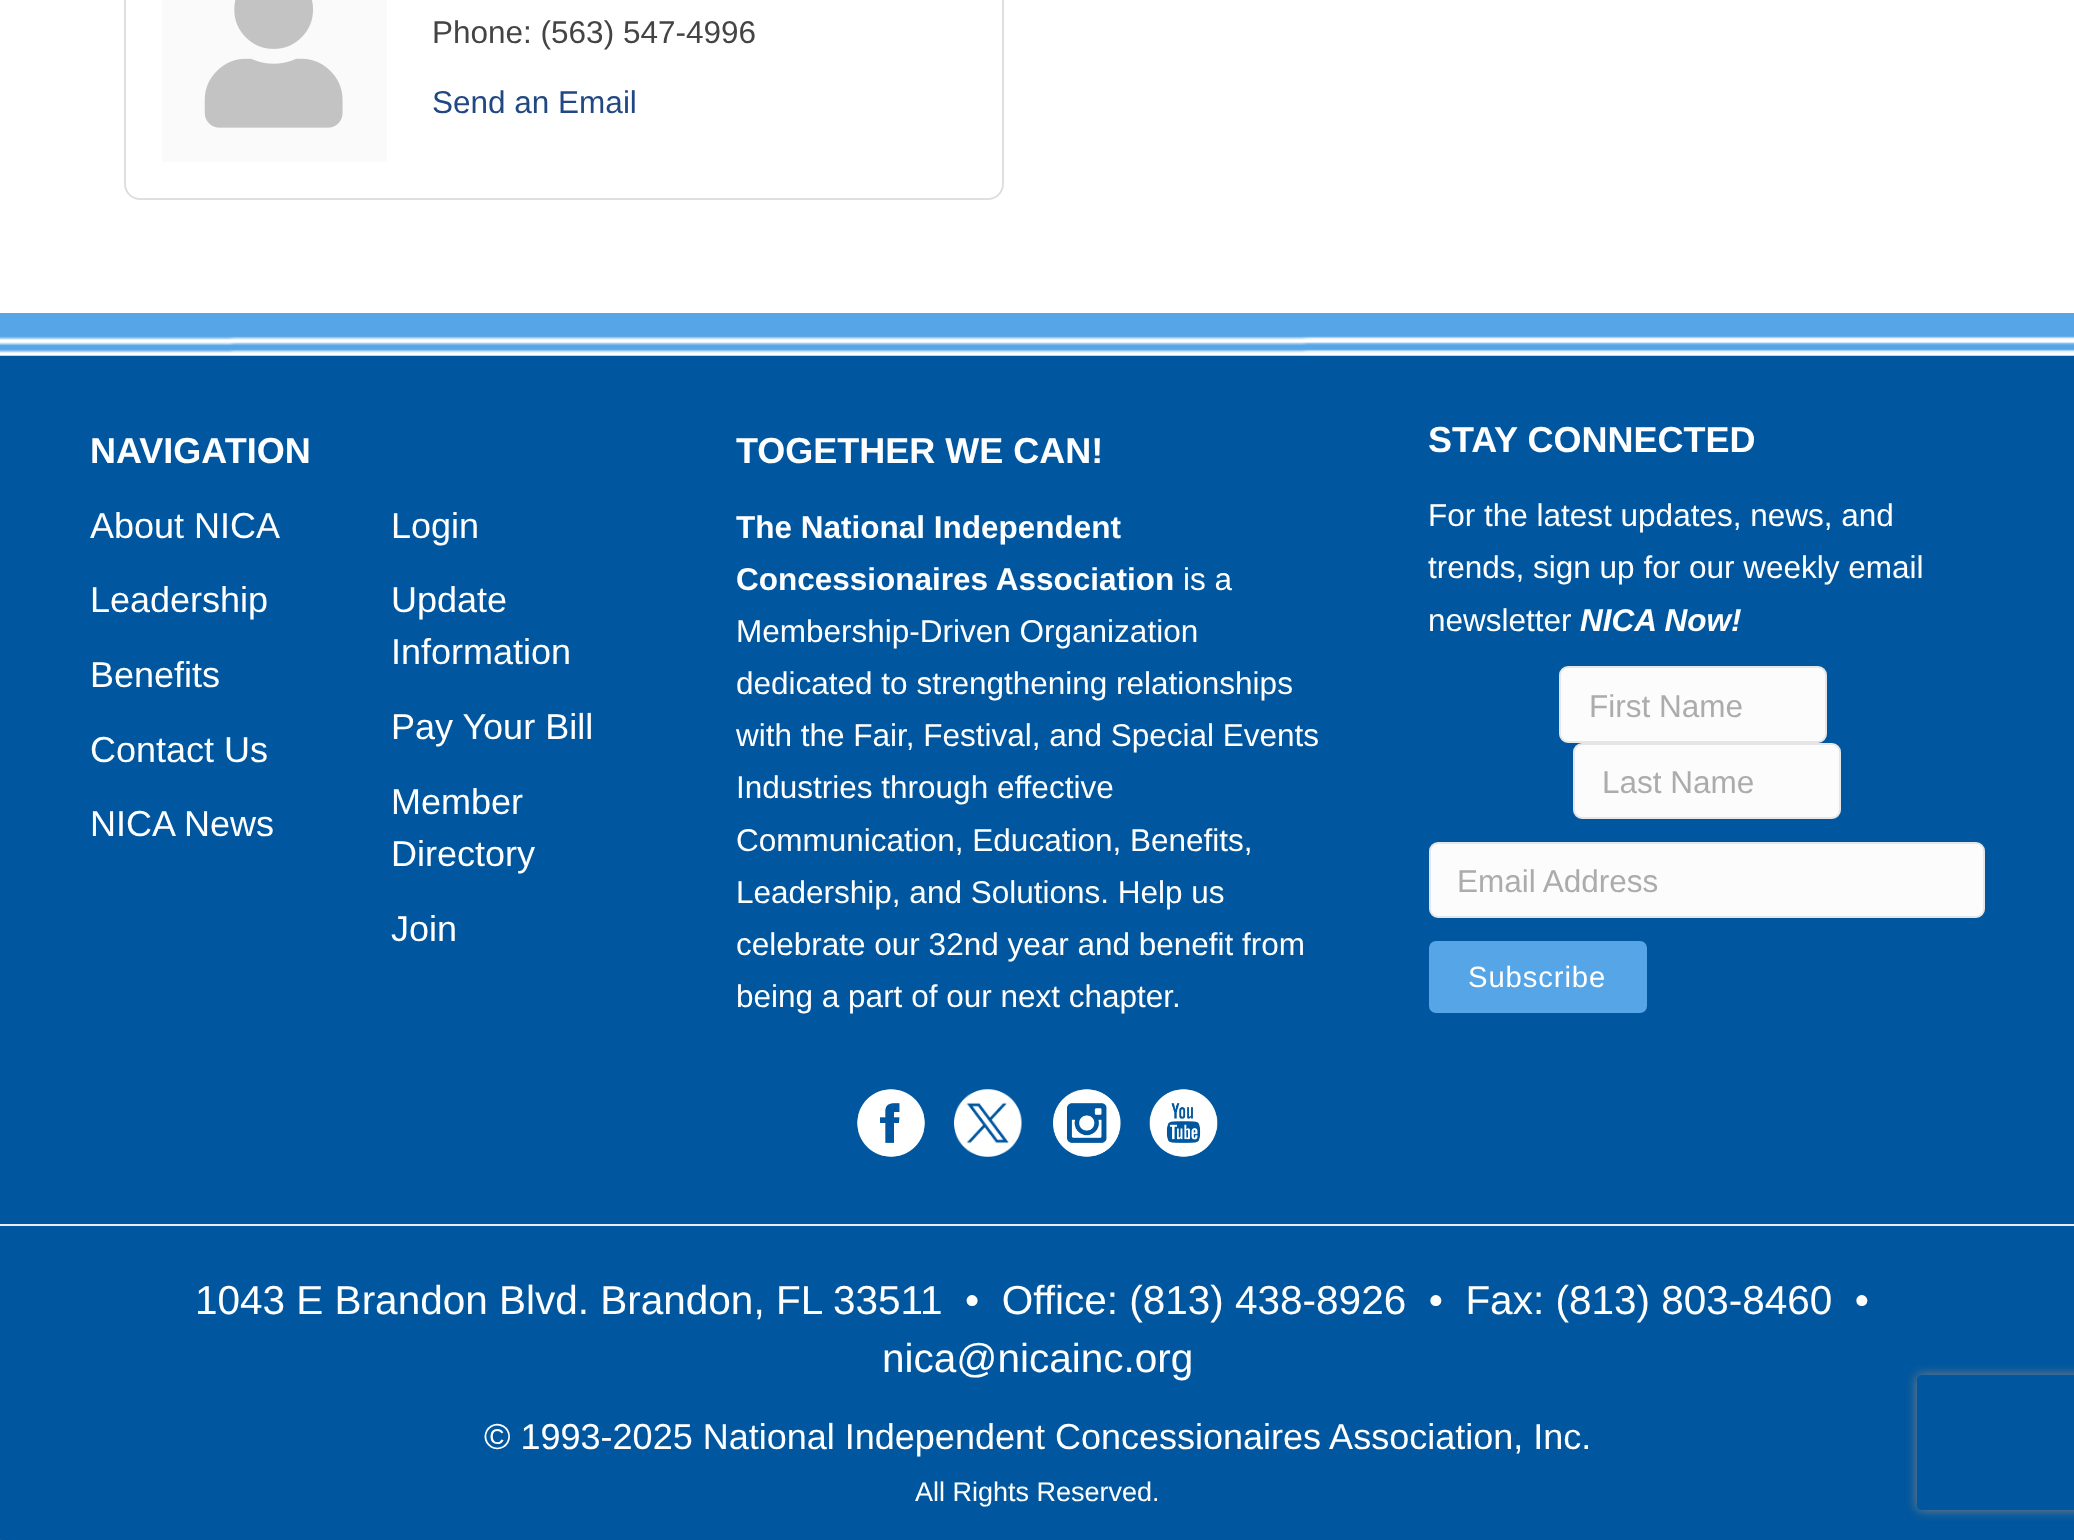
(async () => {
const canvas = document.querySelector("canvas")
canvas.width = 2074
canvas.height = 1540
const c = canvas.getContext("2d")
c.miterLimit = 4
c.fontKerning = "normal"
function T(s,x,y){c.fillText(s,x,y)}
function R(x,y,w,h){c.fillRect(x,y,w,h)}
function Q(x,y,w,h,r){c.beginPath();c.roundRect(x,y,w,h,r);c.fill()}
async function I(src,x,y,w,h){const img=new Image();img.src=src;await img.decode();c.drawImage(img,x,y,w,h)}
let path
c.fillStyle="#fff"
R(0,0,2074,1540)
c.beginPath()
c.roundRect(125,-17,878,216,15)
c.strokeStyle="#dfdfdf"
c.lineWidth=2
c.stroke()
c.fillStyle="#fafafa"
R(162,0,225,162)
await I("1.png",204,0,139,128)
c.font="31.5px Liberation Sans"
c.fillStyle="#444"
T("Phone: (563) 547-4996",432,43)
c.fillStyle="#224884"
T("Send an Email",432,113)
c.fillStyle="#00579f"
Q(0,1055,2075,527,45)
R(0,355,2074,745)
await I("2.png",0,313,2074,43)
c.font="bold 36px Liberation Sans"
c.fillStyle="#fff"
T("NAVIGATION",90,463)
c.font="36px Liberation Sans"
T("About NICA",90,538)
T("Leadership",90,612)
T("Benefits",90,687)
T("Contact Us",90,762)
T("NICA News",90,836)
T("Login",391,538)
T("Update",391,612)
T("Information",391,664)
T("Pay Your Bill",391,739)
T("Member",391,814)
T("Directory",391,866)
T("Join",391,941)
c.font="bold 36px Liberation Sans"
T("TOGETHER WE CAN!",736,463)
c.font="bold 31.5px Liberation Sans"
T("The National Independent",736,538)
T("Concessionaires Association",736,590)
c.font="31.5px Liberation Sans"
T("is a",1183,590)
T("Membership-Driven Organization",736,642)
T("dedicated to strengthening relationships",736,694)
T("with the Fair, Festival, and Special Events",736,746)
T("Industries through effective",736,798)
T("Communication, Education, Benefits,",736,851)
T("Leadership, and Solutions. Help us",736,903)
T("celebrate our 32nd year and benefit from",736,955)
T("being a part of our next chapter.",736,1007)
c.font="bold 36px Liberation Sans"
T("STAY CONNECTED",1428,452)
c.font="31.5px Liberation Sans"
T("For the latest updates, news, and",1428,526)
T("trends, sign up for our weekly email",1428,578)
T("newsletter",1428,631)
c.font="italic bold 31.5px Liberation Sans"
T("NICA Now!",1580,631)
c.fillStyle="#fcfcfc"
c.beginPath()
c.roundRect(1560,667,266,75,8)
c.fill()
c.strokeStyle="#e6e6e6"
c.stroke()
c.font="31.5px Liberation Sans"
c.fillStyle="#acacac"
T("First Name",1589,717)
c.fillStyle="#fcfcfc"
c.beginPath()
c.roundRect(1574,744,266,74,8)
c.fill()
c.stroke()
c.fillStyle="#acacac"
T("Last Name",1602,793)
c.fillStyle="#fcfcfc"
c.beginPath()
c.roundRect(1430,843,554,74,8)
c.fill()
c.stroke()
c.fillStyle="#acacac"
T("Email Address",1457,892)
c.fillStyle="#55a5e7"
Q(1429,941,218,72,7)
c.letterSpacing="0.9px"
c.font="29.25px Liberation Sans"
c.fillStyle="#fff"
T("Subscribe",1468,987)
await I("3.png",857,1089,68,68)
await I("4.png",954,1089,68,68)
await I("5.png",1053,1089,68,68)
await I("6.png",1149,1089,69,68)
c.fillStyle="#eee"
R(0,1224,2074,2)
c.letterSpacing="0px"
c.font="40.5px Liberation Sans"
c.fillStyle="#fff"
T("1043 E Brandon Blvd. Brandon, FL 33511",195,1314)
T("•  Office: (813) 438-8926  •  Fax: (813) 803-8460  •",965,1314)
T("nica@nicainc.org",882,1372)
c.font="36px Liberation Sans"
T("© 1993-2025 National Independent Concessionaires Association, Inc.",484,1449)
c.font="27px Liberation Sans"
T("All Rights Reserved.",915,1501)
c.save()
path = new Path2D("M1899 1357h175v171h-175zm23 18h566c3 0 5 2 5 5v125c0 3-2 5-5 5h-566c-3 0-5-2-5-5v-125c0-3 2-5 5-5z")
c.clip(path,"evenodd")
c.fillStyle="#808080"
c.filter="blur(5.5px)"
c.beginPath()
c.roundRect(1917,1375,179,135,5)
c.fill()
c.filter="none"
c.restore()
})()
